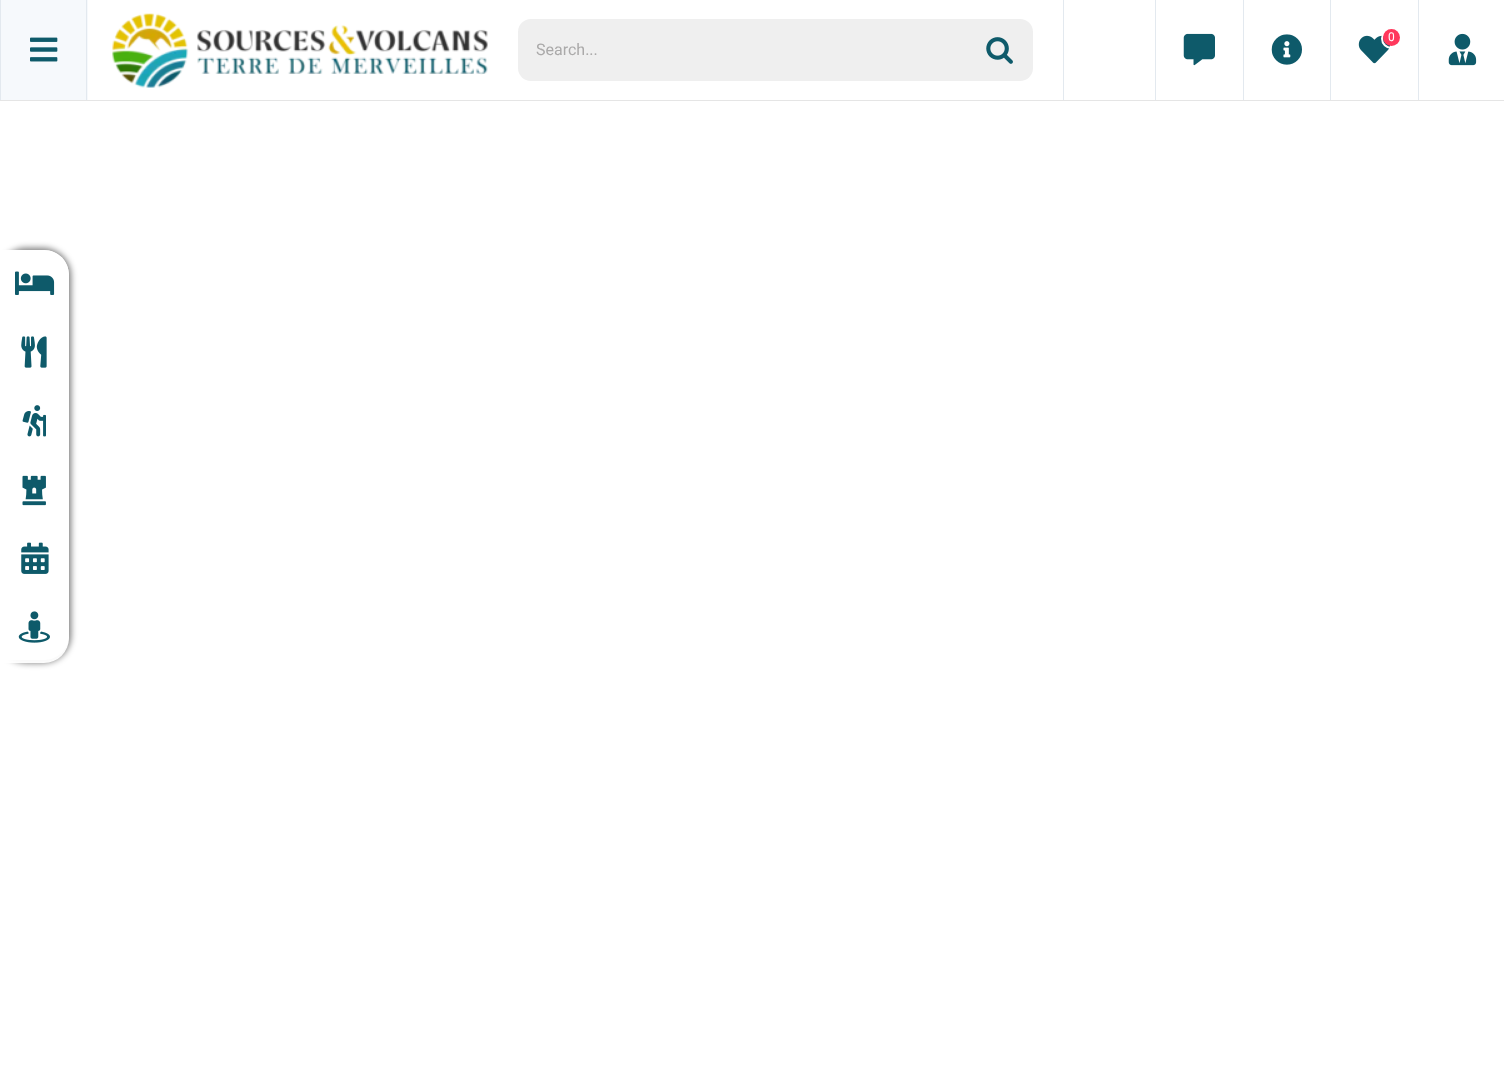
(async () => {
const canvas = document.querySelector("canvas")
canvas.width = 1504
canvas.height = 1079
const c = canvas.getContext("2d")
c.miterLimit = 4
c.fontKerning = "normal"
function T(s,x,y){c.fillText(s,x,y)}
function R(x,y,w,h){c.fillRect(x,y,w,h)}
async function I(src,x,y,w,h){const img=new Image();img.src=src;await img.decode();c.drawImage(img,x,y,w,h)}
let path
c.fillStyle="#fff"
R(0,0,1504,1079)
c.fillStyle="#e5e5e5"
R(0,100,1504,1)
c.fillStyle="#f6f9fc"
R(1,0,87,100)
c.fillStyle="#e3e9ef"
R(86,0,1,100)
R(0,0,1,100)
await I("1.png",30,37,28,25)
await I("2.png",112,13,376,75)
R(1063,0,1,100)
R(1155,0,1,100)
await I("3.png",1183,33,32,33)
R(1243,0,1,100)
await I("4.png",1271,34,31,31)
R(1330,0,1,100)
await I("5.png",1358,35,32,29)
c.beginPath()
c.roundRect(1382,29,20,19,9.5)
c.strokeStyle="#fff"
c.lineWidth=2
c.stroke()
c.fillStyle="#ff385c"
c.beginPath()
c.arc(1391.5,37.5,8.5,0,7)
c.fill()
c.font="12px Roboto"
c.fillStyle="#fff"
T("0",1388,41)
c.fillStyle="#e3e9ef"
R(1418,0,1,100)
await I("6.png",1448,33,29,33)
c.fillStyle="#efefef"
c.beginPath()
c.roundRect(518,19,468,62,[13,0,0,13])
c.fill()
c.font="16px Roboto"
c.fillStyle="#aaa9a9"
T("Search...",536,55)
c.fillStyle="#efefef"
c.beginPath()
c.roundRect(986,19,47,62,[0,13,13,0])
c.fill()
await I("7.png",986,37,27,27)
c.save()
path = new Path2D("M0 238h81v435h-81zm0 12h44c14 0 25 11 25 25v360c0 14-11 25-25 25h-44z")
c.clip(path,"evenodd")
c.fillStyle="#00000085"
c.filter="blur(3px)"
c.beginPath()
c.roundRect(-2,248,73,415,28)
c.fill()
c.filter="none"
c.restore()
c.fillStyle="#fffffff2"
c.beginPath()
c.roundRect(0,250,69,69,[0,25,0,0])
c.fill()
await I("8.png",15,271,40,24)
R(68,319,1,69)
await I("9.png",21,336,26,32)
R(68,388,1,68)
await I("10.png",22,405,24,32)
R(68,456,1,69)
await I("11.png",22,475,24,31)
R(68,525,1,69)
await I("12.png",21,542,28,32)
c.beginPath()
c.roundRect(0,594,69,69,[0,0,25,0])
c.fill()
await I("13.png",18,611,32,32)
})()
